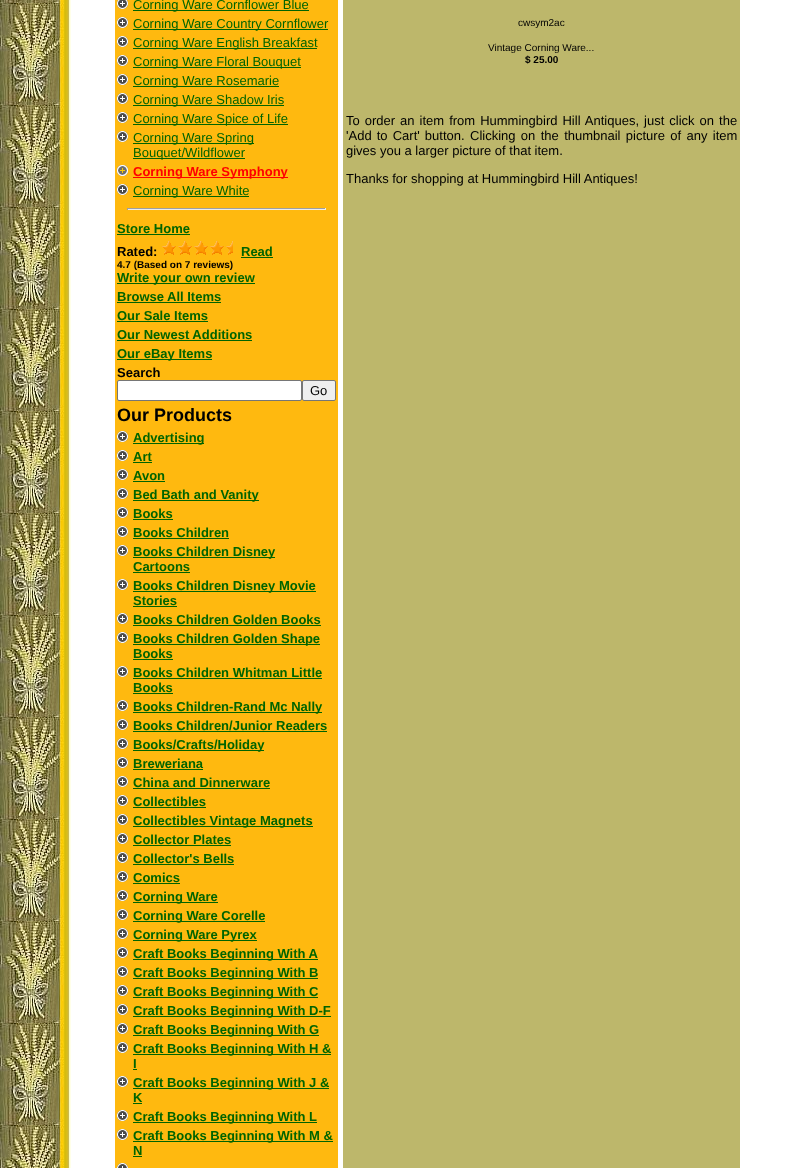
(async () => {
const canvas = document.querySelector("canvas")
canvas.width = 791
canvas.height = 1168
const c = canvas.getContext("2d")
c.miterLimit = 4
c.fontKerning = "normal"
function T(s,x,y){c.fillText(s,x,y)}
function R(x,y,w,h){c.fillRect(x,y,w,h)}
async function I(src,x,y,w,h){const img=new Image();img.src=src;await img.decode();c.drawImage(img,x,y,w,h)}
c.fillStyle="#fff"
R(0,0,791,1168)
await I("1.png",0,0,71,1168)
c.fillStyle="#ffb90f"
R(115,0,223,1168)
await I("2.png",117,0,11,9)
c.fillStyle="#006400"
R(133,10,176,1)
c.font="13px Liberation Sans"
T("Corning Ware Cornflower Blue",133,9)
await I("3.png",117,17,11,11)
R(133,29,195,1)
T("Corning Ware Country Cornflower",133,28)
await I("3.png",117,36,11,11)
R(133,48,184,1)
T("Corning Ware English Breakfast",133,47)
await I("3.png",117,55,11,11)
R(133,67,168,1)
T("Corning Ware Floral Bouquet",133,66)
await I("3.png",117,74,11,11)
R(133,86,146,1)
T("Corning Ware Rosemarie",133,85)
await I("3.png",117,93,11,11)
R(133,105,151,1)
T("Corning Ware Shadow Iris",133,104)
await I("3.png",117,112,11,11)
R(133,124,155,1)
T("Corning Ware Spice of Life",133,123)
await I("3.png",117,131,11,11)
R(133,143,121,1)
T("Corning Ware Spring",133,142)
R(133,158,112,1)
T("Bouquet/Wildflower",133,157)
await I("4.png",117,165,11,11)
c.fillStyle="#f00"
R(133,177,155,1)
c.font="bold 13px Liberation Sans"
T("Corning Ware Symphony",133,176)
await I("3.png",117,184,11,11)
c.fillStyle="#006400"
R(133,196,116,1)
c.font="13px Liberation Sans"
T("Corning Ware White",133,195)
c.fillStyle="#9f9f9f"
R(127,208,199,1)
c.fillStyle="#eee"
R(325,208,1,2)
R(127,209,199,1)
c.fillStyle="#9f9f9f"
R(127,208,1,2)
c.font="bold 13px Liberation Sans"
c.fillStyle="#006400"
T("Store Home",117,233)
R(117,234,73,1)
c.fillStyle="#000"
T("Rated:",117,256)
await I("5.png",162,241,14,14)
await I("5.png",178,241,14,14)
await I("5.png",194,241,14,14)
await I("5.png",210,241,14,14)
await I("6.png",226,241,7,14)
c.fillStyle="#006400"
T("Read",241,256)
R(241,257,32,1)
c.font="bold 10px Liberation Sans"
c.fillStyle="#000"
T("4.7 (Based on 7 reviews)",117,268)
c.fillStyle="#006400"
R(117,283,138,1)
c.font="bold 13px Liberation Sans"
T("Write your own review",117,282)
T("Browse",117,301)
R(117,302,104,1)
T("All Items",167,301)
T("Our Sale Items",117,320)
R(117,321,91,1)
T("Our Newest Additions",117,339)
R(117,340,135,1)
R(117,359,95,1)
T("Our eBay Items",117,358)
c.fillStyle="#000"
T("Search",117,377)
c.fillStyle="#fff"
c.beginPath()
c.roundRect(117.5,380.5,184,20,1.5)
c.fill()
c.strokeStyle="#767676"
c.stroke()
c.fillStyle="#efefef"
c.beginPath()
c.roundRect(302.5,380.5,33,20,1.5)
c.fill()
c.stroke()
c.font="13px Liberation Sans"
c.fillStyle="#000"
T("Go",310,395)
c.font="bold 18px Liberation Sans"
T("Our Products",117,421)
await I("3.png",117,431,11,11)
c.fillStyle="#006400"
R(133,443,71,1)
c.font="bold 13px Liberation Sans"
T("Advertising",133,442)
await I("3.png",117,450,11,11)
T("Art",133,461)
R(133,462,19,1)
await I("3.png",117,469,11,11)
T("Avon",133,480)
R(133,481,32,1)
await I("3.png",117,488,11,11)
R(133,500,126,1)
T("Bed Bath and Vanity",133,499)
await I("3.png",117,507,11,11)
T("Books",133,518)
R(133,519,40,1)
await I("3.png",117,526,11,11)
T("Books Children",133,537)
R(133,538,96,1)
await I("3.png",117,545,11,11)
R(133,557,142,1)
T("Books Children Disney",133,556)
T("Cartoons",133,571)
R(133,572,57,1)
await I("3.png",117,579,11,11)
R(133,591,183,1)
T("Books Children Disney Movie",133,590)
T("Stories",133,605)
R(133,606,44,1)
await I("3.png",117,613,11,11)
T("Books Children Golden Books",133,624)
R(133,625,188,1)
await I("3.png",117,632,11,11)
R(133,644,187,1)
T("Books Children Golden Shape",133,643)
T("Books",133,658)
R(133,659,40,1)
await I("3.png",117,666,11,11)
T("Books Children Whitman Little",133,677)
R(133,678,189,1)
T("Books",133,692)
R(133,693,40,1)
await I("3.png",117,700,11,11)
R(133,712,189,1)
T("Books Children-Rand Mc Nally",133,711)
await I("3.png",117,719,11,11)
T("Books Children/Junior Readers",133,730)
R(133,731,194,1)
await I("3.png",117,738,11,11)
R(133,750,131,1)
T("Books/Crafts/Holiday",133,749)
await I("3.png",117,757,11,11)
T("Breweriana",133,768)
R(133,769,70,1)
await I("3.png",117,776,11,11)
T("China and Dinnerware",133,787)
R(133,788,137,1)
await I("3.png",117,795,11,11)
T("Collectibles",133,806)
R(133,807,73,1)
await I("3.png",117,814,11,11)
R(133,826,180,1)
T("Collectibles Vintage Magnets",133,825)
await I("3.png",117,833,11,11)
T("Collector Plates",133,844)
R(133,845,98,1)
await I("3.png",117,852,11,11)
T("Collector's Bells",133,863)
R(133,864,101,1)
await I("3.png",117,871,11,11)
T("Comics",133,882)
R(133,883,47,1)
await I("3.png",117,890,11,11)
R(133,902,85,1)
T("Corning Ware",133,901)
await I("3.png",117,909,11,11)
R(133,921,132,1)
T("Corning Ware Corelle",133,920)
await I("3.png",117,928,11,11)
R(133,940,124,1)
T("Corning Ware Pyrex",133,939)
await I("3.png",117,947,11,11)
R(133,959,185,1)
T("Craft Books Beginning With A",133,958)
await I("3.png",117,966,11,11)
R(133,978,185,1)
T("Craft Books Beginning With B",133,977)
await I("3.png",117,985,11,11)
R(133,997,185,1)
T("Craft Books Beginning With C",133,996)
await I("3.png",117,1004,11,11)
R(133,1016,198,1)
T("Craft Books Beginning With D-F",133,1015)
await I("3.png",117,1023,11,11)
R(133,1035,186,1)
T("Craft Books Beginning With G",133,1034)
await I("3.png",117,1042,11,11)
R(133,1054,198,1)
T("Craft Books Beginning With H &",133,1053)
T("I",133,1068)
R(133,1069,4,1)
await I("3.png",117,1076,11,11)
R(133,1088,196,1)
T("Craft Books Beginning With J &",133,1087)
T("K",133,1102)
R(133,1103,9,1)
await I("3.png",117,1110,11,11)
R(133,1122,184,1)
T("Craft Books Beginning With L",133,1121)
await I("3.png",117,1129,11,11)
R(133,1141,200,1)
T("Craft Books Beginning With M &",133,1140)
T("N",133,1155)
R(133,1156,9,1)
await I("7.png",117,1163,11,5)
c.fillStyle="#bdb76b"
R(343,0,397,1168)
c.font="10px Liberation Sans"
c.fillStyle="#000"
T("cwsym2ac",518,26)
T("Vintage Corning Ware...",488,51)
c.font="bold 10px Liberation Sans"
T("$ 25.00",525,63)
c.wordSpacing="1.4px"
c.font="13px Liberation Sans"
T("To order an item from Hummingbird Hill Antiques, just click on the",346,125)
c.wordSpacing="1.5px"
T("'Add to Cart' button.",346,140)
c.wordSpacing="1.75px"
T("Clicking on the thumbnail picture of any item",470,140)
c.wordSpacing="0px"
T("gives you a larger picture of that item.",346,155)
T("Thanks for shopping at Hummingbird Hill Antiques!",346,183)
})()
